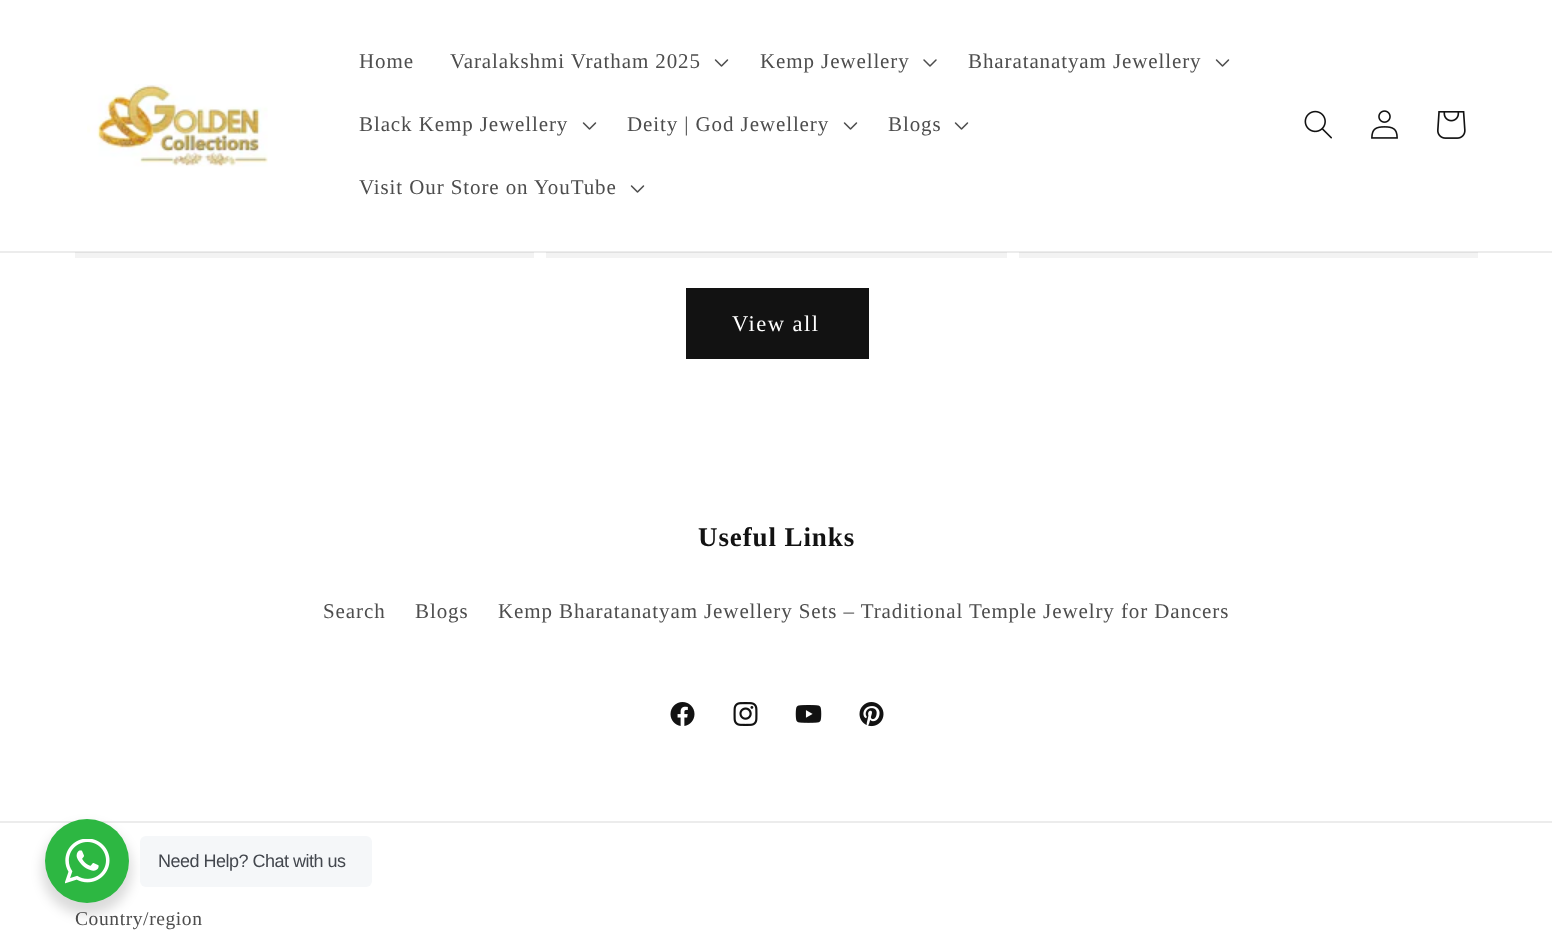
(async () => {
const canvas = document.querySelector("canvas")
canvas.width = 1552
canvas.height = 948
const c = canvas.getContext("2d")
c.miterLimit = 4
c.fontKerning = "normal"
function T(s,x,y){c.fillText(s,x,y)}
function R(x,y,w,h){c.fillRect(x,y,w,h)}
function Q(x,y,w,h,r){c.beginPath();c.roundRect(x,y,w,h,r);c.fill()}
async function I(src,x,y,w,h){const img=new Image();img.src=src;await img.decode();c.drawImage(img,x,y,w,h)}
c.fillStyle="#fff"
R(0,0,1552,948)
c.fillStyle="#ececec"
R(0,251,1552,2)
await I("1.png",87,84,181,83)
c.letterSpacing="0.9px"
c.font="21px Liberation Serif"
c.fillStyle="#4d4d4d"
T("Home",359,68)
T("Varalakshmi Vratham 2025",450,68)
await I("2.png",714,59,15,8)
T("Kemp Jewellery",760,68)
await I("3.png",923,59,14,8)
T("Bharatanatyam Jewellery",968,68)
await I("2.png",1215,59,15,8)
T("Black Kemp Jewellery",359,131)
await I("2.png",582,122,15,8)
T("Deity | God Jewellery",627,131)
await I("2.png",843,122,15,8)
T("Blogs",888,131)
await I("2.png",954,122,15,8)
T("Visit Our Store on YouTube",359,194)
await I("2.png",630,185,15,8)
await I("4.png",1304,110,28,29)
await I("5.png",1371,110,27,29)
await I("6.png",1437,111,29,28)
c.fillStyle="#f3f3f3"
R(75,253,459,5)
c.fillStyle="#e1e1e1"
R(75,252,459,1)
c.fillStyle="#f3f3f3"
R(546,253,461,5)
c.fillStyle="#e1e1e1"
R(546,252,461,1)
c.fillStyle="#f3f3f3"
R(1019,253,459,5)
c.fillStyle="#e1e1e1"
R(1019,252,459,1)
c.fillStyle="#121212"
R(686,288,183,71)
c.letterSpacing="1.5px"
c.font="22.5px Liberation Serif"
c.fillStyle="#fff"
T("View all",732,331)
c.letterSpacing="0.9px"
c.font="bold 27px Liberation Serif"
c.fillStyle="#121212"
T("Useful Links",698,546)
c.font="21px Liberation Serif"
c.fillStyle="#4d4d4d"
T("Search",323,618)
T("Blogs",415,618)
T("Kemp Bharatanatyam Jewellery Sets – Traditional Temple Jewelry for Dancers",498,618)
await I("7.png",670,702,25,24)
await I("8.png",733,702,25,24)
await I("9.png",795,705,27,18)
await I("10.png",859,702,25,25)
c.fillStyle="#ececec"
R(0,821,1552,2)
c.letterSpacing="0.6px"
c.font="19.5px Liberation Serif"
c.fillStyle="#4d4d4d"
T("Country/region",75,925)
c.fillStyle="#00000024"
c.filter="blur(6px)"
c.beginPath()
c.roundRect(42,825,90,90,45)
c.fill()
c.filter="none"
c.fillStyle="#2db742"
c.beginPath()
c.arc(87,861,42,0,7)
c.fill()
await I("11.png",65,839,45,45)
c.fillStyle="#f5f7f9"
Q(140,836,232,51,6)
c.letterSpacing="-0.5px"
c.font="18px Liberation Sans"
c.fillStyle="#43474e"
T("Need Help? Chat with us",158,867)
})()
